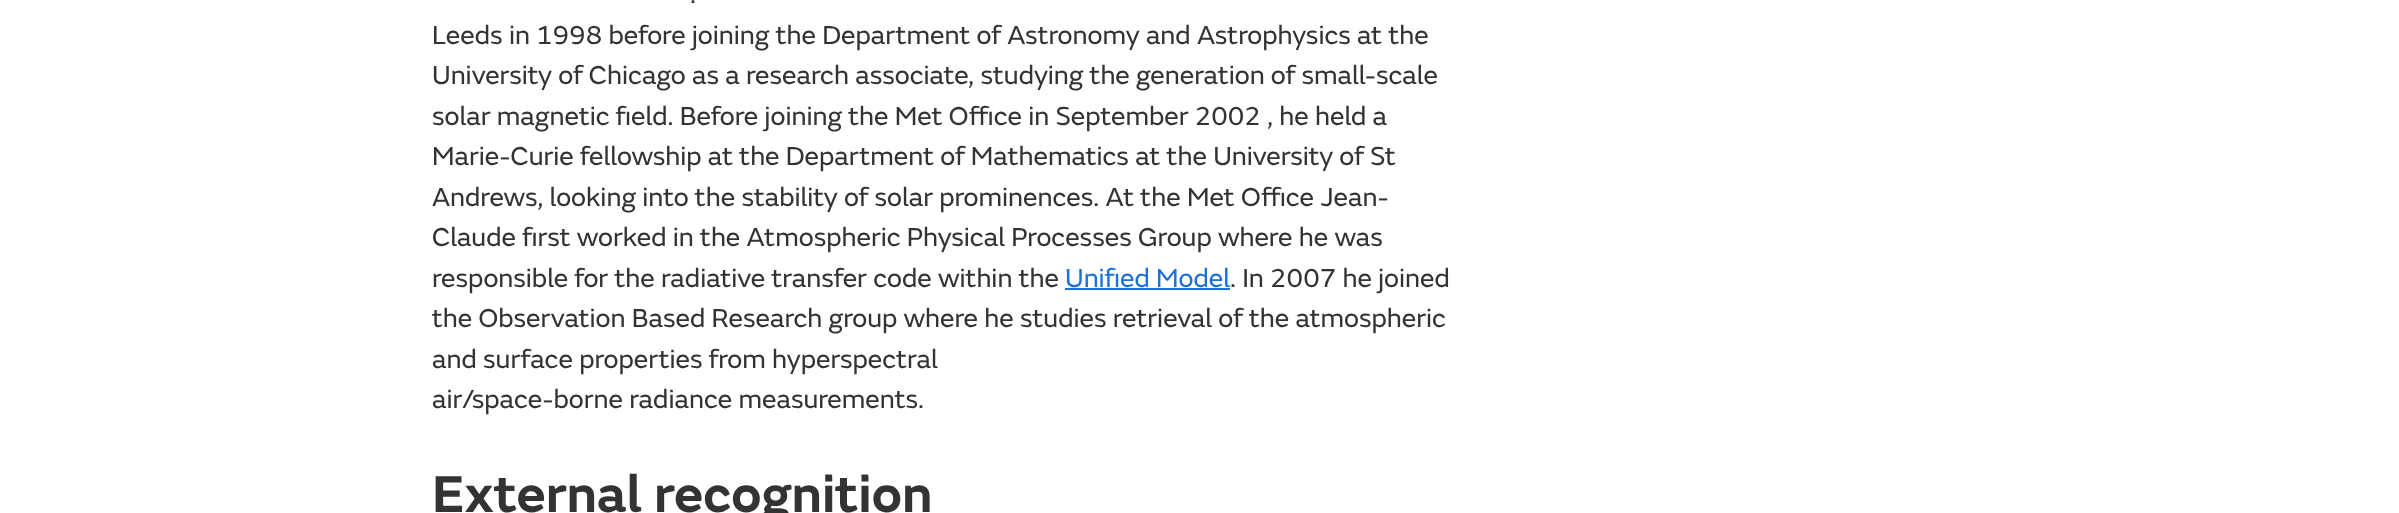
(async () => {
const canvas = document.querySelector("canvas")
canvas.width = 2399
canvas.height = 513
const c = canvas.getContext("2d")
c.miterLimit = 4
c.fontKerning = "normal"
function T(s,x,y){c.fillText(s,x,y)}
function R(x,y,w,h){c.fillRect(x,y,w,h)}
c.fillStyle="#fff"
R(0,0,2399,513)
c.font="27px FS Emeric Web"
c.fillStyle="#333"
T(".",690,3)
T("Leeds in 1998 before joining the Department of Astronomy and Astrophysics at the",432,44)
T("University of Chicago as a research associate, studying the generation of small-scale",432,84)
T("solar magnetic field. Before joining the Met Office in September 2002 , he held a",432,125)
T("Marie-Curie fellowship at the Department of Mathematics at the University of St",432,165)
T("Andrews, looking into the stability of solar prominences. At the Met Office Jean-",432,206)
T("Claude first worked in the Atmospheric Physical Processes Group where he was",432,246)
T("responsible for the radiative transfer code within the",432,287)
c.fillStyle="#1d70d8"
T("Unified Model",1065,287)
R(1065,288,165,2)
c.fillStyle="#333"
T(". In 2007 he joined",1230,287)
T("the Observation Based Research group where he studies retrieval of the atmospheric",432,327)
T("and surface properties from hyperspectral",432,368)
T("air/space-borne radiance measurements.",432,408)
c.font="600 54px FS Emeric Web"
T("External recognition",432,512)
})()
